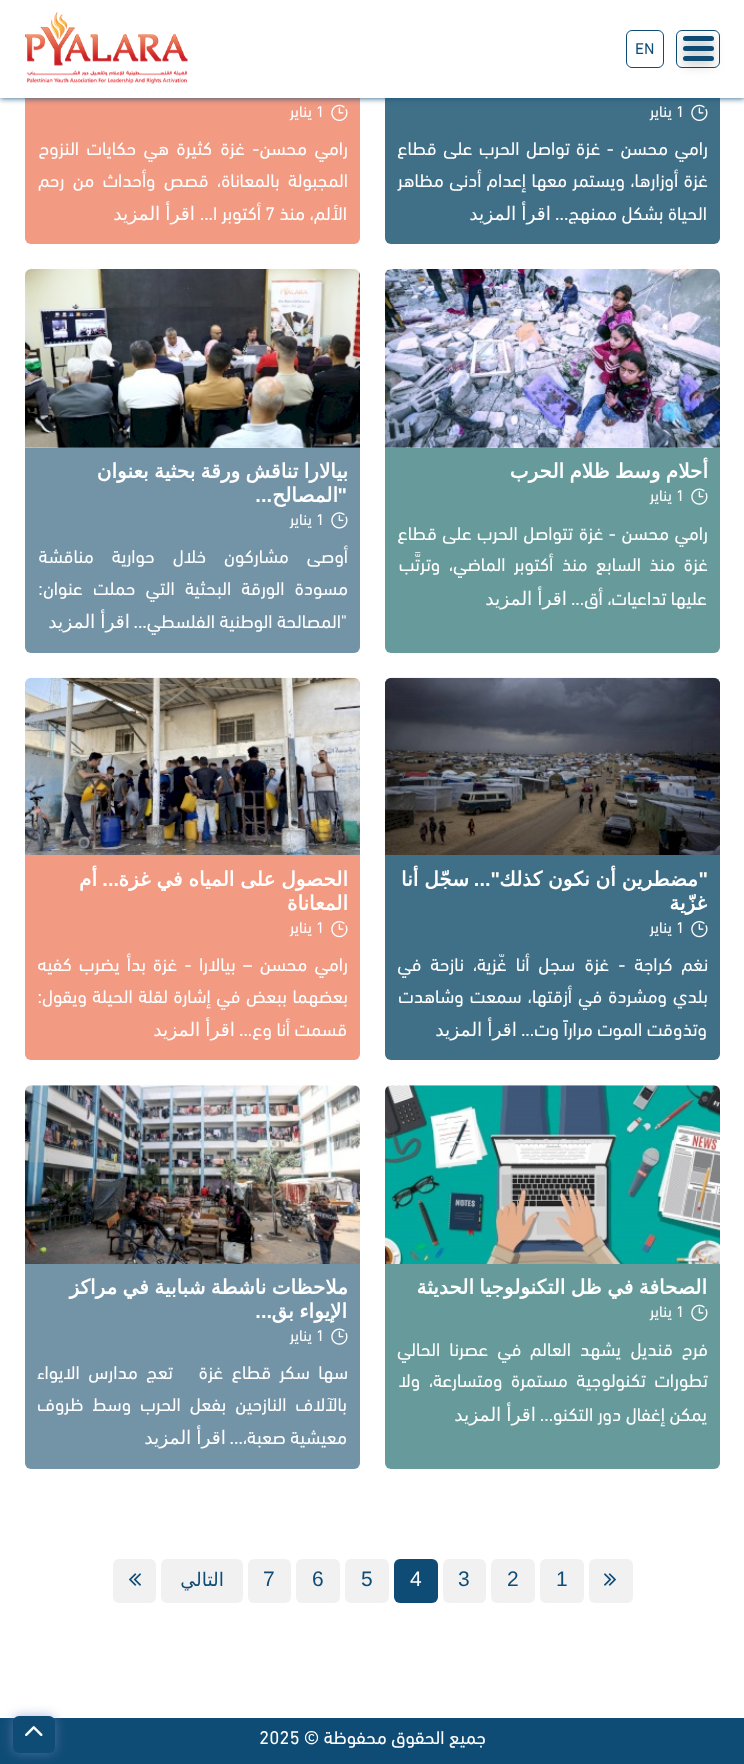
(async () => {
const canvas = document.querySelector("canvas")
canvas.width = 744
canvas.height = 1764
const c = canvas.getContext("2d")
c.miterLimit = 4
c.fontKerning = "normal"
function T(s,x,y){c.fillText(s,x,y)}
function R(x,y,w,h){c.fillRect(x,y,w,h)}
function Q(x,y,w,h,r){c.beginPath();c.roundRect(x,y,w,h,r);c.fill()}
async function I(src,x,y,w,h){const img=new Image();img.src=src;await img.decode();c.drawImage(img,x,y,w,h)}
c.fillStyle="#fff"
R(0,0,744,1764)
c.fillStyle="#407088"
c.beginPath()
c.roundRect(385,39,335,205,[0,0,6,6])
c.fill()
await I("3.png",691,104,17,17)
c.fillStyle="#f29a82"
c.beginPath()
c.roundRect(25,39,335,205,[0,0,6,6])
c.fill()
await I("4.png",331,104,17,17)
c.fillStyle="#0f4c75"
c.filter="blur(3px)"
c.beginPath()
c.rect(0,0,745,98)
c.fill()
c.filter="none"
c.fillStyle="#fff"
R(0,0,744,98)
c.beginPath()
c.roundRect(676.5,30.5,43,37,5.5)
c.strokeStyle="#0f4c75"
c.stroke()
c.fillStyle="#0000004d"
c.filter="blur(6px)"
c.beginPath()
c.roundRect(683,39,31,5,2.5)
c.fill()
c.filter="none"
c.fillStyle="#0f4c75"
Q(683,36,31,5,2.5)
c.fillStyle="#0000004d"
c.filter="blur(6px)"
c.beginPath()
c.roundRect(683,49,31,5,2.5)
c.fill()
c.filter="none"
c.fillStyle="#0f4c75"
Q(683,46,31,5,2.5)
c.fillStyle="#0000004d"
c.filter="blur(6px)"
c.beginPath()
c.roundRect(683,59,31,5,2.5)
c.fill()
c.filter="none"
c.fillStyle="#0f4c75"
Q(683,56,31,5,2.5)
c.beginPath()
c.roundRect(626.5,30.5,37,37,5.5)
c.stroke()
c.font="16px 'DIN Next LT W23'"
T("EN",635,54)
await I("1.png",25,12,163,72)
R(0,1718,744,46)
c.fillStyle="#7189bf99"
c.filter="blur(6px)"
c.beginPath()
c.roundRect(13,1716,42,37,6)
c.fill()
c.filter="none"
c.fillStyle="#0f4c75"
Q(13,1716,42,37,6)
await I("2.png",25,1726,18,11)
c.fillStyle="#fff"
T("1",676,117)
c.direction="rtl"
T("يناير",672,117)
c.wordSpacing="2px"
c.font="18.75px 'DIN Next LT W23'"
T("رامي محسن - غزة",708,155)
T("تواصل الحرب على قطاع",570,155)
c.wordSpacing="1px"
T("غزة أوزارها، ويستمر معها إعدام أدنى مظاهر",708,187)
c.wordSpacing="0px"
T("الحياة بشكل ممنهج...",707,220)
c.wordSpacing="-1px"
c.font="18.75px DejaVu Sans"
T("اقرأ المزيد",551,220)
c.wordSpacing="0px"
c.direction="ltr"
c.font="16px 'DIN Next LT W23'"
T("1",316,117)
c.direction="rtl"
T("يناير",312,117)
c.wordSpacing="3px"
c.font="18.75px 'DIN Next LT W23'"
T("رامي محسن- غزة",348,155)
T("كثيرة هي حكايات النزوح",212,155)
c.wordSpacing="3.75px"
T("المجبولة بالمعاناة، قصص وأحداث من رحم",348,187)
c.wordSpacing="0px"
T("الألم، منذ",347,220)
c.direction="ltr"
T("7",265,220)
c.direction="rtl"
T("أكتوبر ا...",261,220)
c.wordSpacing="-1px"
c.font="18.75px DejaVu Sans"
T("اقرأ المزيد",195,220)
await I("5.png",385,269,335,179)
c.fillStyle="#679b9b"
c.beginPath()
c.roundRect(385,448,335,205,[0,0,6,6])
c.fill()
c.font="bold 20px DejaVu Sans"
c.fillStyle="#fff"
T("أحلام وسط ظلام الحرب",708,478)
await I("6.png",691,488,17,17)
c.wordSpacing="0px"
c.direction="ltr"
c.font="16px 'DIN Next LT W23'"
T("1",676,501)
c.direction="rtl"
T("يناير",672,501)
c.wordSpacing="1px"
c.font="18.75px 'DIN Next LT W23'"
T("رامي محسن - غزة",708,540)
T("تتواصل الحرب على قطاع",573,540)
c.wordSpacing="4px"
T("غزة منذ السابع منذ أكتوبر الماضي، وترتَّب",708,571)
c.wordSpacing="0px"
T("عليها تداعيات، أق...",707,605)
c.wordSpacing="-1px"
c.font="18.75px DejaVu Sans"
T("اقرأ المزيد",567,605)
await I("7.png",25,269,335,179)
c.fillStyle="#7393a7"
c.beginPath()
c.roundRect(25,448,335,205,[0,0,6,6])
c.fill()
c.font="bold 20px DejaVu Sans"
c.fillStyle="#fff"
T("بيالارا تناقش ورقة بحثية بعنوان",348,478)
c.wordSpacing="0px"
c.font="bold 20px Liberation Sans"
T("\"",347,502)
c.font="bold 20px DejaVu Sans"
T("المصالح",338,502)
c.font="bold 20px Liberation Sans"
T("...",272,502)
await I("8.png",331,512,17,17)
c.direction="ltr"
c.font="16px 'DIN Next LT W23'"
T("1",316,525)
c.direction="rtl"
T("يناير",312,525)
c.wordSpacing="13.5px"
c.font="18.75px 'DIN Next LT W23'"
T("أوصى مشاركون خلال حوارية مناقشة",348,563)
c.wordSpacing="5.75px"
T("مسودة الورقة البحثية التي حملت عنوان:",348,595)
c.wordSpacing="0px"
T("\"المصالحة الوطنية الفلسطي...",347,628)
c.wordSpacing="-1px"
c.font="18.75px DejaVu Sans"
T("اقرأ المزيد",130,628)
await I("9.png",385,677,335,178)
c.fillStyle="#407088"
c.beginPath()
c.roundRect(385,855,335,205,[0,0,6,6])
c.fill()
c.wordSpacing="0px"
c.font="bold 20px Liberation Sans"
c.fillStyle="#fff"
T("\"",708,886)
c.wordSpacing="-0.5px"
c.font="bold 20px DejaVu Sans"
T("مضطرين أن نكون كذلك",698,886)
c.wordSpacing="0px"
c.font="bold 20px Liberation Sans"
T("\"...",500,886)
c.wordSpacing="-0.5px"
c.font="bold 20px DejaVu Sans"
T("سجّل أنا",469,886)
c.wordSpacing="0px"
T("غزّية",707,910)
await I("10.png",691,921,17,17)
c.direction="ltr"
c.font="16px 'DIN Next LT W23'"
T("1",676,933)
c.direction="rtl"
T("يناير",672,933)
c.wordSpacing="4.5px"
c.font="18.75px 'DIN Next LT W23'"
T("نغم كراجة - غزة",708,971)
T("سجل أنا غّزية، نازحة في",575,971)
c.wordSpacing="1.5px"
T("بلدي ومشردة في أزقتها، سمعت وشاهدت",708,1003)
c.wordSpacing="0px"
T("وتذوقت الموت مراراً وت...",707,1036)
c.wordSpacing="-1px"
c.font="18.75px DejaVu Sans"
T("اقرأ المزيد",517,1036)
await I("11.png",25,677,335,178)
c.fillStyle="#f29a82"
c.beginPath()
c.roundRect(25,855,335,205,[0,0,6,6])
c.fill()
c.wordSpacing="-0.5px"
c.font="bold 20px DejaVu Sans"
c.fillStyle="#fff"
T("الحصول على المياه في غزة",348,886)
c.wordSpacing="0px"
c.font="bold 20px Liberation Sans"
T("...",119,886)
c.font="bold 20px DejaVu Sans"
T("أم",97,886)
T("المعاناة",348,910)
await I("12.png",331,921,17,17)
c.direction="ltr"
c.font="16px 'DIN Next LT W23'"
T("1",316,933)
c.direction="rtl"
T("يناير",312,933)
c.wordSpacing="2.75px"
c.font="18.75px 'DIN Next LT W23'"
T("رامي محسن – بيالارا - غزة",348,971)
T("بدأ يضرب كفيه",146,971)
c.wordSpacing="1px"
T("بعضهما ببعض في إشارة لقلة الحيلة ويقول:",348,1003)
c.wordSpacing="0px"
T("قسمت أنا وع...",347,1036)
c.wordSpacing="-1px"
c.font="18.75px DejaVu Sans"
T("اقرأ المزيد",235,1036)
await I("13.png",385,1085,335,179)
c.fillStyle="#679b9b"
c.beginPath()
c.roundRect(385,1264,335,205,[0,0,6,6])
c.fill()
c.font="bold 20px DejaVu Sans"
c.fillStyle="#fff"
T("الصحافة في ظل التكنولوجيا الحديثة",707,1294)
await I("14.png",691,1304,17,17)
c.wordSpacing="0px"
c.direction="ltr"
c.font="16px 'DIN Next LT W23'"
T("1",676,1317)
c.direction="rtl"
T("يناير",672,1317)
c.wordSpacing="4.5px"
c.font="18.75px 'DIN Next LT W23'"
T("فرح قنديل",708,1356)
T("يشهد العالم في عصرنا الحالي",621,1356)
c.wordSpacing="4px"
T("تطورات تكنولوجية مستمرة ومتسارعة، ولا",708,1387)
c.wordSpacing="0px"
T("يمكن إغفال دور التكنو...",707,1421)
c.wordSpacing="-1px"
c.font="18.75px DejaVu Sans"
T("اقرأ المزيد",536,1421)
await I("15.png",25,1085,335,179)
c.fillStyle="#7393a7"
c.beginPath()
c.roundRect(25,1264,335,205,[0,0,6,6])
c.fill()
c.font="bold 20px DejaVu Sans"
c.fillStyle="#fff"
T("ملاحظات ناشطة شبابية في مراكز",348,1294)
T("الإيواء بق",347,1318)
c.wordSpacing="0px"
c.font="bold 20px Liberation Sans"
T("...",272,1318)
await I("16.png",331,1328,17,17)
c.direction="ltr"
c.font="16px 'DIN Next LT W23'"
T("1",316,1341)
c.direction="rtl"
T("يناير",312,1341)
c.wordSpacing="4px"
c.font="18.75px 'DIN Next LT W23'"
T("سها سكر",348,1379)
T("قطاع غزة",271,1379)
T("تعج مدارس الايواء",173,1379)
c.wordSpacing="4.5px"
T("بالآلاف النازحين بفعل الحرب وسط ظروف",347,1411)
c.wordSpacing="0px"
T("معيشية صعبة،...",347,1444)
c.wordSpacing="-1px"
c.font="18.75px DejaVu Sans"
T("اقرأ المزيد",226,1444)
c.fillStyle="#f1f1f1"
Q(589,1559,44,44,6)
await I("17.png",604,1573,12,13)
Q(540,1559,44,44,6)
c.wordSpacing="0px"
c.direction="ltr"
c.font="21px Liberation Sans"
c.fillStyle="#0f4c75"
T("1",556,1586)
c.fillStyle="#f1f1f1"
Q(491,1559,44,44,6)
c.fillStyle="#0f4c75"
T("2",507,1586)
c.fillStyle="#f1f1f1"
Q(443,1559,43,44,6)
c.fillStyle="#0f4c75"
T("3",458,1586)
Q(394,1559,44,44,6)
c.fillStyle="#fff"
T("4",410,1586)
c.fillStyle="#f1f1f1"
Q(345,1559,44,44,6)
c.fillStyle="#0f4c75"
T("5",361,1586)
c.fillStyle="#f1f1f1"
Q(296,1559,44,44,6)
c.fillStyle="#0f4c75"
T("6",312,1586)
c.fillStyle="#f1f1f1"
Q(248,1559,43,44,6)
c.fillStyle="#0f4c75"
T("7",263,1586)
c.fillStyle="#f1f1f1"
Q(161,1559,82,44,6)
c.direction="rtl"
c.font="18.75px DejaVu Sans"
c.fillStyle="#0f4c75"
T("التالي",224,1586)
c.fillStyle="#f1f1f1"
Q(113,1559,43,44,6)
await I("18.png",129,1573,12,13)
c.font="18.75px 'DIN Next LT W23'"
c.fillStyle="#fff"
T("جميع الحقوق محفوظة ©",486,1744)
c.direction="ltr"
T("2025",259,1744)
})()
